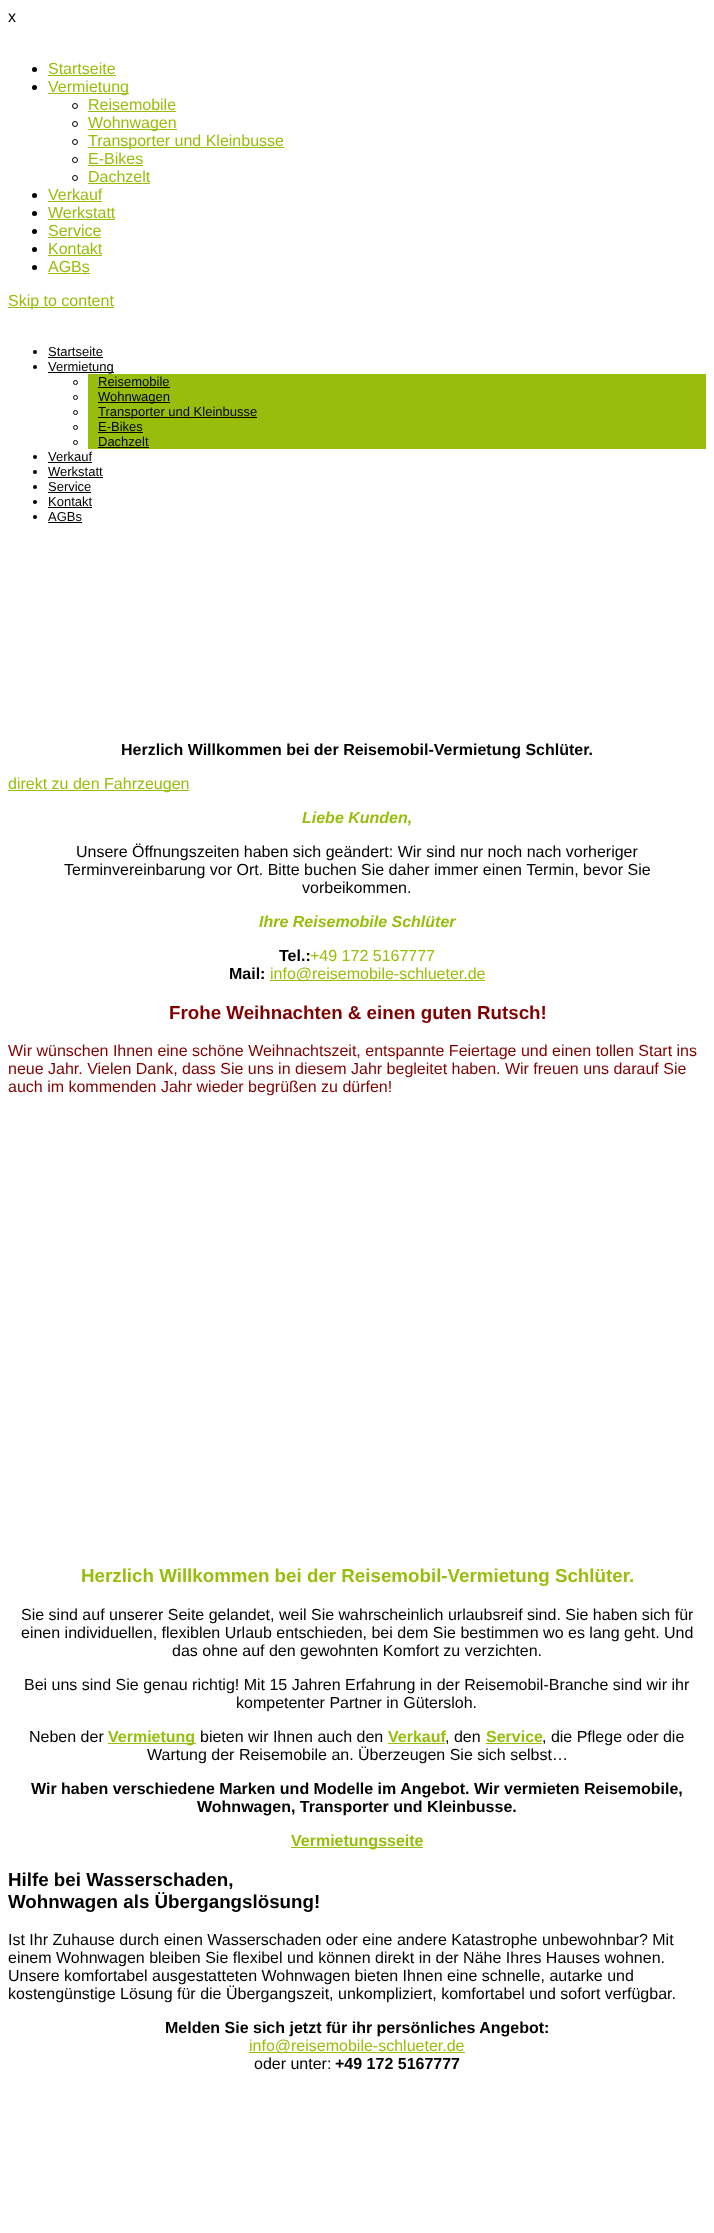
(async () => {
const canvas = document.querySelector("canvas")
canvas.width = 714
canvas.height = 2233
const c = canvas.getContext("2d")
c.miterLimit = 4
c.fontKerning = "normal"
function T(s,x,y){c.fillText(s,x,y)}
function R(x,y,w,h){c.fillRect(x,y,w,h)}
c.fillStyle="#fff"
R(0,0,714,2233)
c.font="16px Liberation Sans"
c.fillStyle="#000"
T("x",8,22)
c.beginPath()
c.arc(34.5,69.5,2.5,0,7)
c.fill()
c.fillStyle="#97be0d"
T("Startseite",48,74)
R(48,75,68,1)
c.fillStyle="#000"
c.beginPath()
c.arc(34.5,87.5,2.5,0,7)
c.fill()
c.fillStyle="#97be0d"
R(48,93,81,1)
T("Vermietung",48,92)
c.beginPath()
c.arc(75,106,2.5,0,7)
c.strokeStyle="#000"
c.stroke()
T("Reisemobile",88,110)
R(88,111,88,1)
c.beginPath()
c.arc(75,124,2.5,0,7)
c.stroke()
R(88,129,89,1)
T("Wohnwagen",88,128)
c.beginPath()
c.arc(75,142,2.5,0,7)
c.stroke()
R(88,147,196,1)
T("Transporter und Kleinbusse",88,146)
c.beginPath()
c.arc(75,160,2.5,0,7)
c.stroke()
T("E-Bikes",88,164)
R(88,165,55,1)
c.beginPath()
c.arc(75,178,2.5,0,7)
c.stroke()
T("Dachzelt",88,182)
R(88,183,62,1)
c.fillStyle="#000"
c.beginPath()
c.arc(34.5,195.5,2.5,0,7)
c.fill()
c.fillStyle="#97be0d"
T("Verkauf",48,200)
R(48,201,54,1)
c.fillStyle="#000"
c.beginPath()
c.arc(34.5,213.5,2.5,0,7)
c.fill()
c.fillStyle="#97be0d"
T("Werkstatt",48,218)
R(48,219,67,1)
c.fillStyle="#000"
c.beginPath()
c.arc(34.5,231.5,2.5,0,7)
c.fill()
c.fillStyle="#97be0d"
T("Service",48,236)
R(48,237,53,1)
c.fillStyle="#000"
c.beginPath()
c.arc(34.5,249.5,2.5,0,7)
c.fill()
c.fillStyle="#97be0d"
T("Kontakt",48,254)
R(48,255,54,1)
c.fillStyle="#000"
c.beginPath()
c.arc(34.5,267.5,2.5,0,7)
c.fill()
c.fillStyle="#97be0d"
T("AGBs",48,272)
R(48,273,42,1)
R(8,307,106,1)
T("Skip to content",8,306)
c.fillStyle="#000"
c.beginPath()
c.arc(35,352,2,0,7)
c.fill()
c.font="13px Liberation Sans"
T("Startseite",48,356)
R(48,357,55,1)
c.beginPath()
c.arc(35,367,2,0,7)
c.fill()
R(48,372,66,1)
T("Vermietung",48,371)
c.fillStyle="#97be0d"
R(88,374,618,75)
c.beginPath()
c.arc(75.5,382.5,2,0,7)
c.stroke()
c.fillStyle="#000"
T("Reisemobile",98,386)
R(98,387,72,1)
c.beginPath()
c.arc(75.5,397.5,2,0,7)
c.stroke()
R(98,402,72,1)
T("Wohnwagen",98,401)
c.beginPath()
c.arc(75.5,412.5,2,0,7)
c.stroke()
R(98,417,159,1)
T("Transporter und Kleinbusse",98,416)
c.beginPath()
c.arc(75.5,427.5,2,0,7)
c.stroke()
T("E-Bikes",98,431)
R(98,432,45,1)
c.beginPath()
c.arc(75.5,442.5,2,0,7)
c.stroke()
T("Dachzelt",98,446)
R(98,447,51,1)
c.beginPath()
c.arc(35,457,2,0,7)
c.fill()
T("Verkauf",48,461)
R(48,462,44,1)
c.beginPath()
c.arc(35,472,2,0,7)
c.fill()
T("Werkstatt",48,476)
R(48,477,55,1)
c.beginPath()
c.arc(35,487,2,0,7)
c.fill()
T("Service",48,491)
R(48,492,43,1)
c.beginPath()
c.arc(35,502,2,0,7)
c.fill()
T("Kontakt",48,506)
R(48,507,44,1)
c.beginPath()
c.arc(35,517,2,0,7)
c.fill()
T("AGBs",48,521)
R(48,522,34,1)
c.font="bold 16px Liberation Sans"
T("Herzlich Willkommen bei der Reisemobil-Vermietung Schlüter.",121,755)
c.fillStyle="#97be0d"
R(8,790,181,1)
c.font="16px Liberation Sans"
T("direkt zu den Fahrzeugen",8,789)
c.font="italic bold 16px Liberation Sans"
T("Liebe Kunden,",302,823)
c.font="16px Liberation Sans"
c.fillStyle="#000"
T("Unsere Öffnungszeiten haben sich geändert: Wir sind nur noch nach vorheriger",76,857)
T("Terminvereinbarung vor Ort. Bitte buchen Sie daher immer einen Termin, bevor Sie",64,875)
T("vorbeikommen.",302,893)
c.font="italic bold 16px Liberation Sans"
c.fillStyle="#97be0d"
T("Ihre Reisemobile Schlüter",259,927)
c.font="bold 16px Liberation Sans"
c.fillStyle="#000"
T("Tel.:",279,961)
c.font="16px Liberation Sans"
c.fillStyle="#97be0d"
T("+49 172 5167777",310,961)
c.font="bold 16px Liberation Sans"
c.fillStyle="#000"
T("Mail:",229,979)
c.fillStyle="#97be0d"
R(270,980,215,1)
c.font="16px Liberation Sans"
T("info@reisemobile-schlueter.de",270,979)
c.font="bold 18.75px Liberation Sans"
c.fillStyle="#800000"
T("Frohe Weihnachten & einen guten Rutsch!",169,1019)
c.font="16px Liberation Sans"
T("Wir wünschen Ihnen eine schöne Weihnachtszeit, entspannte Feiertage und einen tollen Start ins",8,1056)
T("neue Jahr. Vielen Dank, dass Sie uns in diesem Jahr begleitet haben. Wir freuen uns darauf Sie",8,1074)
T("auch im kommenden Jahr wieder begrüßen zu dürfen!",8,1092)
c.font="bold 18.75px Liberation Sans"
c.fillStyle="#97be0d"
T("Herzlich Willkommen bei der Reisemobil-Vermietung Schlüter.",81,1582)
c.font="16px Liberation Sans"
c.fillStyle="#000"
T("Sie sind auf unserer Seite gelandet, weil Sie wahrscheinlich urlaubsreif sind. Sie haben sich für",21,1620)
T("einen individuellen, flexiblen Urlaub entschieden, bei dem Sie bestimmen wo es lang geht. Und",21,1638)
T("das ohne auf den gewohnten Komfort zu verzichten.",172,1656)
T("Bei uns sind Sie genau richtig! Mit 15 Jahren Erfahrung in der Reisemobil-Branche sind wir ihr",24,1690)
T("kompetenter Partner in Gütersloh.",236,1708)
T("Neben der",29,1742)
c.fillStyle="#97be0d"
R(108,1743,88,1)
c.font="bold 16px Liberation Sans"
T("Vermietung",108,1742)
c.font="16px Liberation Sans"
c.fillStyle="#000"
T("bieten wir Ihnen auch den",200,1742)
c.font="bold 16px Liberation Sans"
c.fillStyle="#97be0d"
T("Verkauf",388,1742)
R(388,1743,57,1)
c.font="16px Liberation Sans"
c.fillStyle="#000"
T(", den",445,1742)
c.font="bold 16px Liberation Sans"
c.fillStyle="#97be0d"
T("Service",486,1742)
R(486,1743,56,1)
c.font="16px Liberation Sans"
c.fillStyle="#000"
T(", die Pflege oder die",542,1742)
T("Wartung der Reisemobile an. Überzeugen Sie sich selbst…",147,1760)
c.font="bold 16px Liberation Sans"
T("Wir haben verschiedene Marken und Modelle im Angebot. Wir vermieten Reisemobile,",31,1794)
T("Wohnwagen, Transporter und Kleinbusse.",197,1812)
c.fillStyle="#97be0d"
R(291,1847,132,1)
T("Vermietungsseite",291,1846)
c.font="bold 18.75px Liberation Sans"
c.fillStyle="#000"
T("Hilfe bei Wasserschaden,",8,1886)
T("Wohnwagen als Übergangslösung!",8,1908)
c.font="16px Liberation Sans"
T("Ist Ihr Zuhause durch einen Wasserschaden oder eine andere Katastrophe unbewohnbar? Mit",8,1945)
T("einem Wohnwagen bleiben Sie flexibel und können direkt in der Nähe Ihres Hauses wohnen.",8,1963)
T("Unsere komfortabel ausgestatteten Wohnwagen bieten Ihnen eine schnelle, autarke und",8,1981)
T("kostengünstige Lösung für die Übergangszeit, unkompliziert, komfortabel und sofort verfügbar.",8,1999)
c.font="bold 16px Liberation Sans"
T("Melden Sie sich jetzt für ihr persönliches Angebot:",165,2033)
c.fillStyle="#97be0d"
R(249,2052,216,1)
c.font="16px Liberation Sans"
T("info@reisemobile-schlueter.de",249,2051)
c.fillStyle="#000"
T("oder unter:",254,2069)
c.font="bold 16px Liberation Sans"
T("+49 172 5167777",335,2069)
})()
